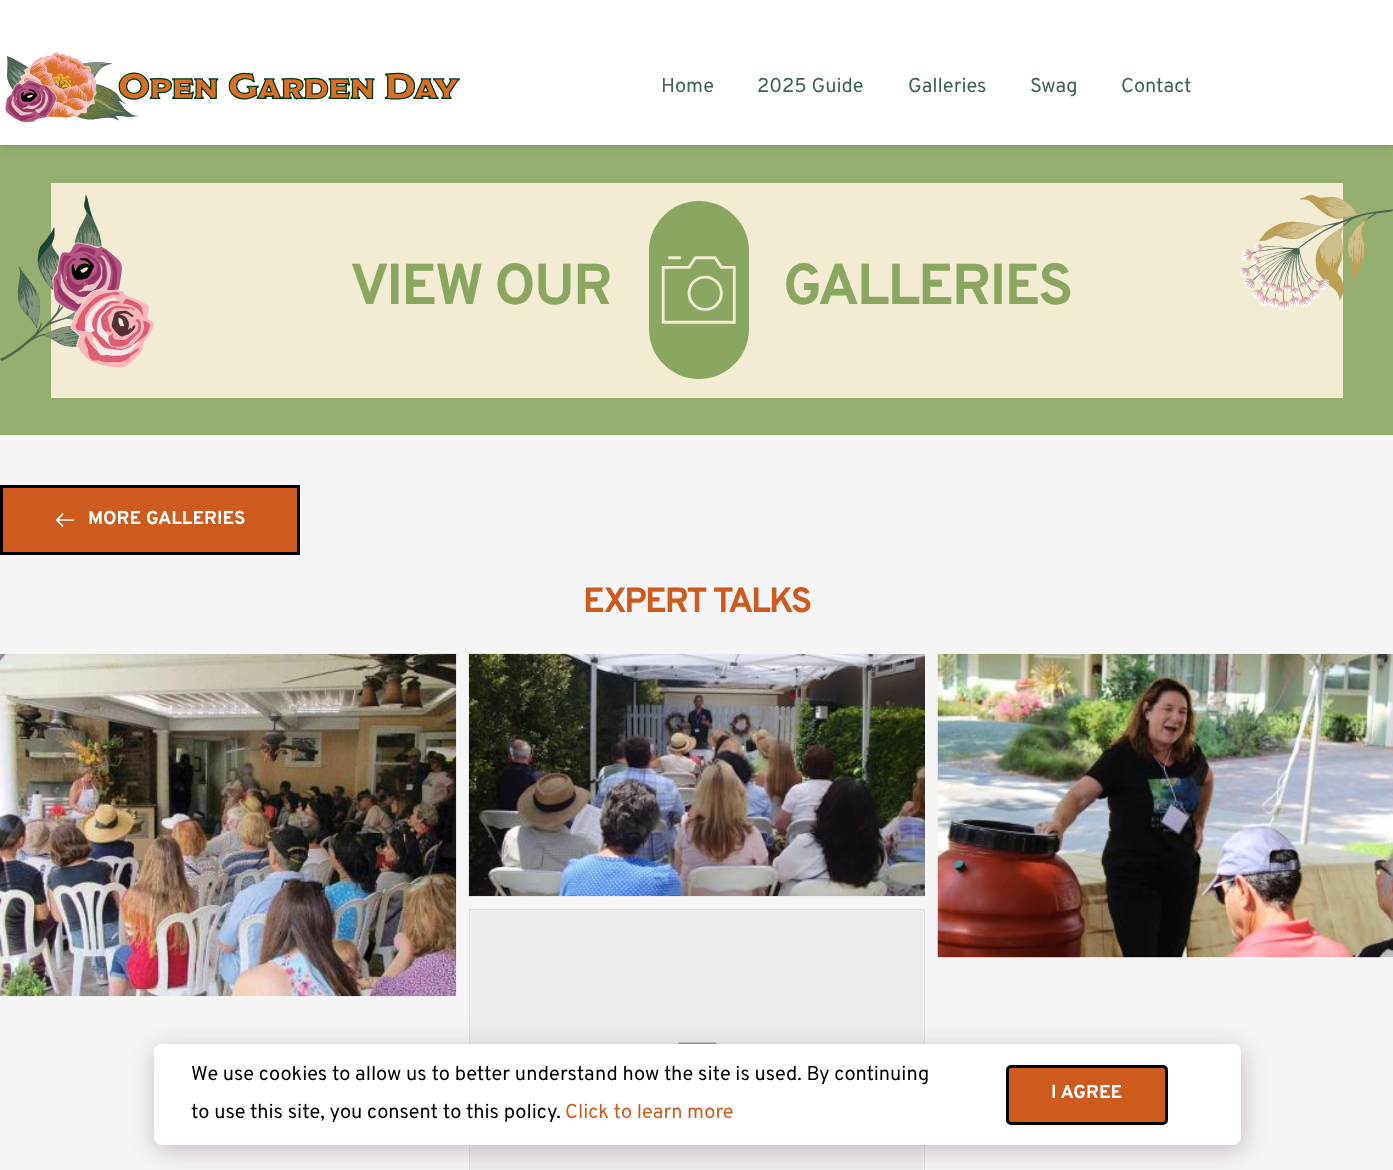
(async () => {
const canvas = document.querySelector("canvas")
canvas.width = 1393
canvas.height = 1170
const c = canvas.getContext("2d")
c.miterLimit = 4
c.fontKerning = "normal"
function T(s,x,y){c.fillText(s,x,y)}
function R(x,y,w,h){c.fillRect(x,y,w,h)}
function Q(x,y,w,h,r){c.beginPath();c.roundRect(x,y,w,h,r);c.fill()}
async function I(src,x,y,w,h){const img=new Image();img.src=src;await img.decode();c.drawImage(img,x,y,w,h)}
c.fillStyle="#f5f5f5"
R(0,0,1393,1170)
c.fillStyle="#96ae6e"
R(0,145,1393,290)
c.fillStyle="#00000026"
c.filter="blur(4.5px)"
c.beginPath()
c.rect(0,1,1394,145)
c.fill()
c.filter="none"
c.fillStyle="#fff"
R(0,0,1393,145)
await I("1.png",5,52,455,71)
c.font="20px Overpass"
c.fillStyle="#416355"
T("Home",661,92)
T("2025 Guide",757,92)
T("Galleries",908,92)
T("Swag",1030,92)
T("Contact",1121,92)
c.fillStyle="#f1ecd3"
R(51,183,1292,215)
await I("2.png",0,195,155,174)
c.letterSpacing="-1.9px"
c.font="bold 57.5px Overpass"
c.fillStyle="#8ba65f"
T("VIEW OUR",350,304)
Q(649,201,100,178,50)
await I("3.png",661,256,75,68)
T("GALLERIES",783,304)
await I("4.png",1239,195,154,116)
c.fillStyle="#ce5b1e"
c.beginPath()
c.rect(1.5,486.5,297,67)
c.fill()
c.strokeStyle="#000"
c.lineWidth=3
c.stroke()
await I("5.png",55,513,20,14)
c.letterSpacing="0px"
c.font="bold 18.75px Overpass"
c.fillStyle="#fff"
T("MORE GALLERIES",88,524)
c.letterSpacing="-1.9px"
c.font="bold 35px Overpass"
c.fillStyle="#ce5b1e"
T("EXPERT TALKS",583,612)
await I("6.png",0,653,457,344)
await I("7.png",468,653,457,244)
c.fillStyle="#fff"
R(938,957,455,1)
await I("8.png",937,653,456,305)
c.fillStyle="#eee"
c.beginPath()
c.rect(469.5,909.5,455,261)
c.fill()
c.strokeStyle="#ddd"
c.lineWidth=1
c.stroke()
await I("9.png",678,1042,40,2)
c.fillStyle="#602a584a"
c.filter="blur(12.5px)"
c.beginPath()
c.roundRect(155,1049,1088,101,8)
c.fill()
c.filter="none"
c.fillStyle="#fff"
Q(154,1044,1087,101,8)
c.letterSpacing="0px"
c.font="20px Overpass"
c.fillStyle="#000"
T("We use cookies to allow us to better understand how the site is used. By continuing",191,1080)
T("to use this site, you consent to this policy.",191,1118)
c.fillStyle="#ce5b1e"
T("Click to learn more",565,1118)
c.beginPath()
c.roundRect(1007.5,1066.5,159,57,3.5)
c.fill()
c.strokeStyle="#000"
c.lineWidth=3
c.stroke()
c.font="bold 18.75px Overpass"
c.fillStyle="#fff"
T("I AGREE",1051,1098)
})()
